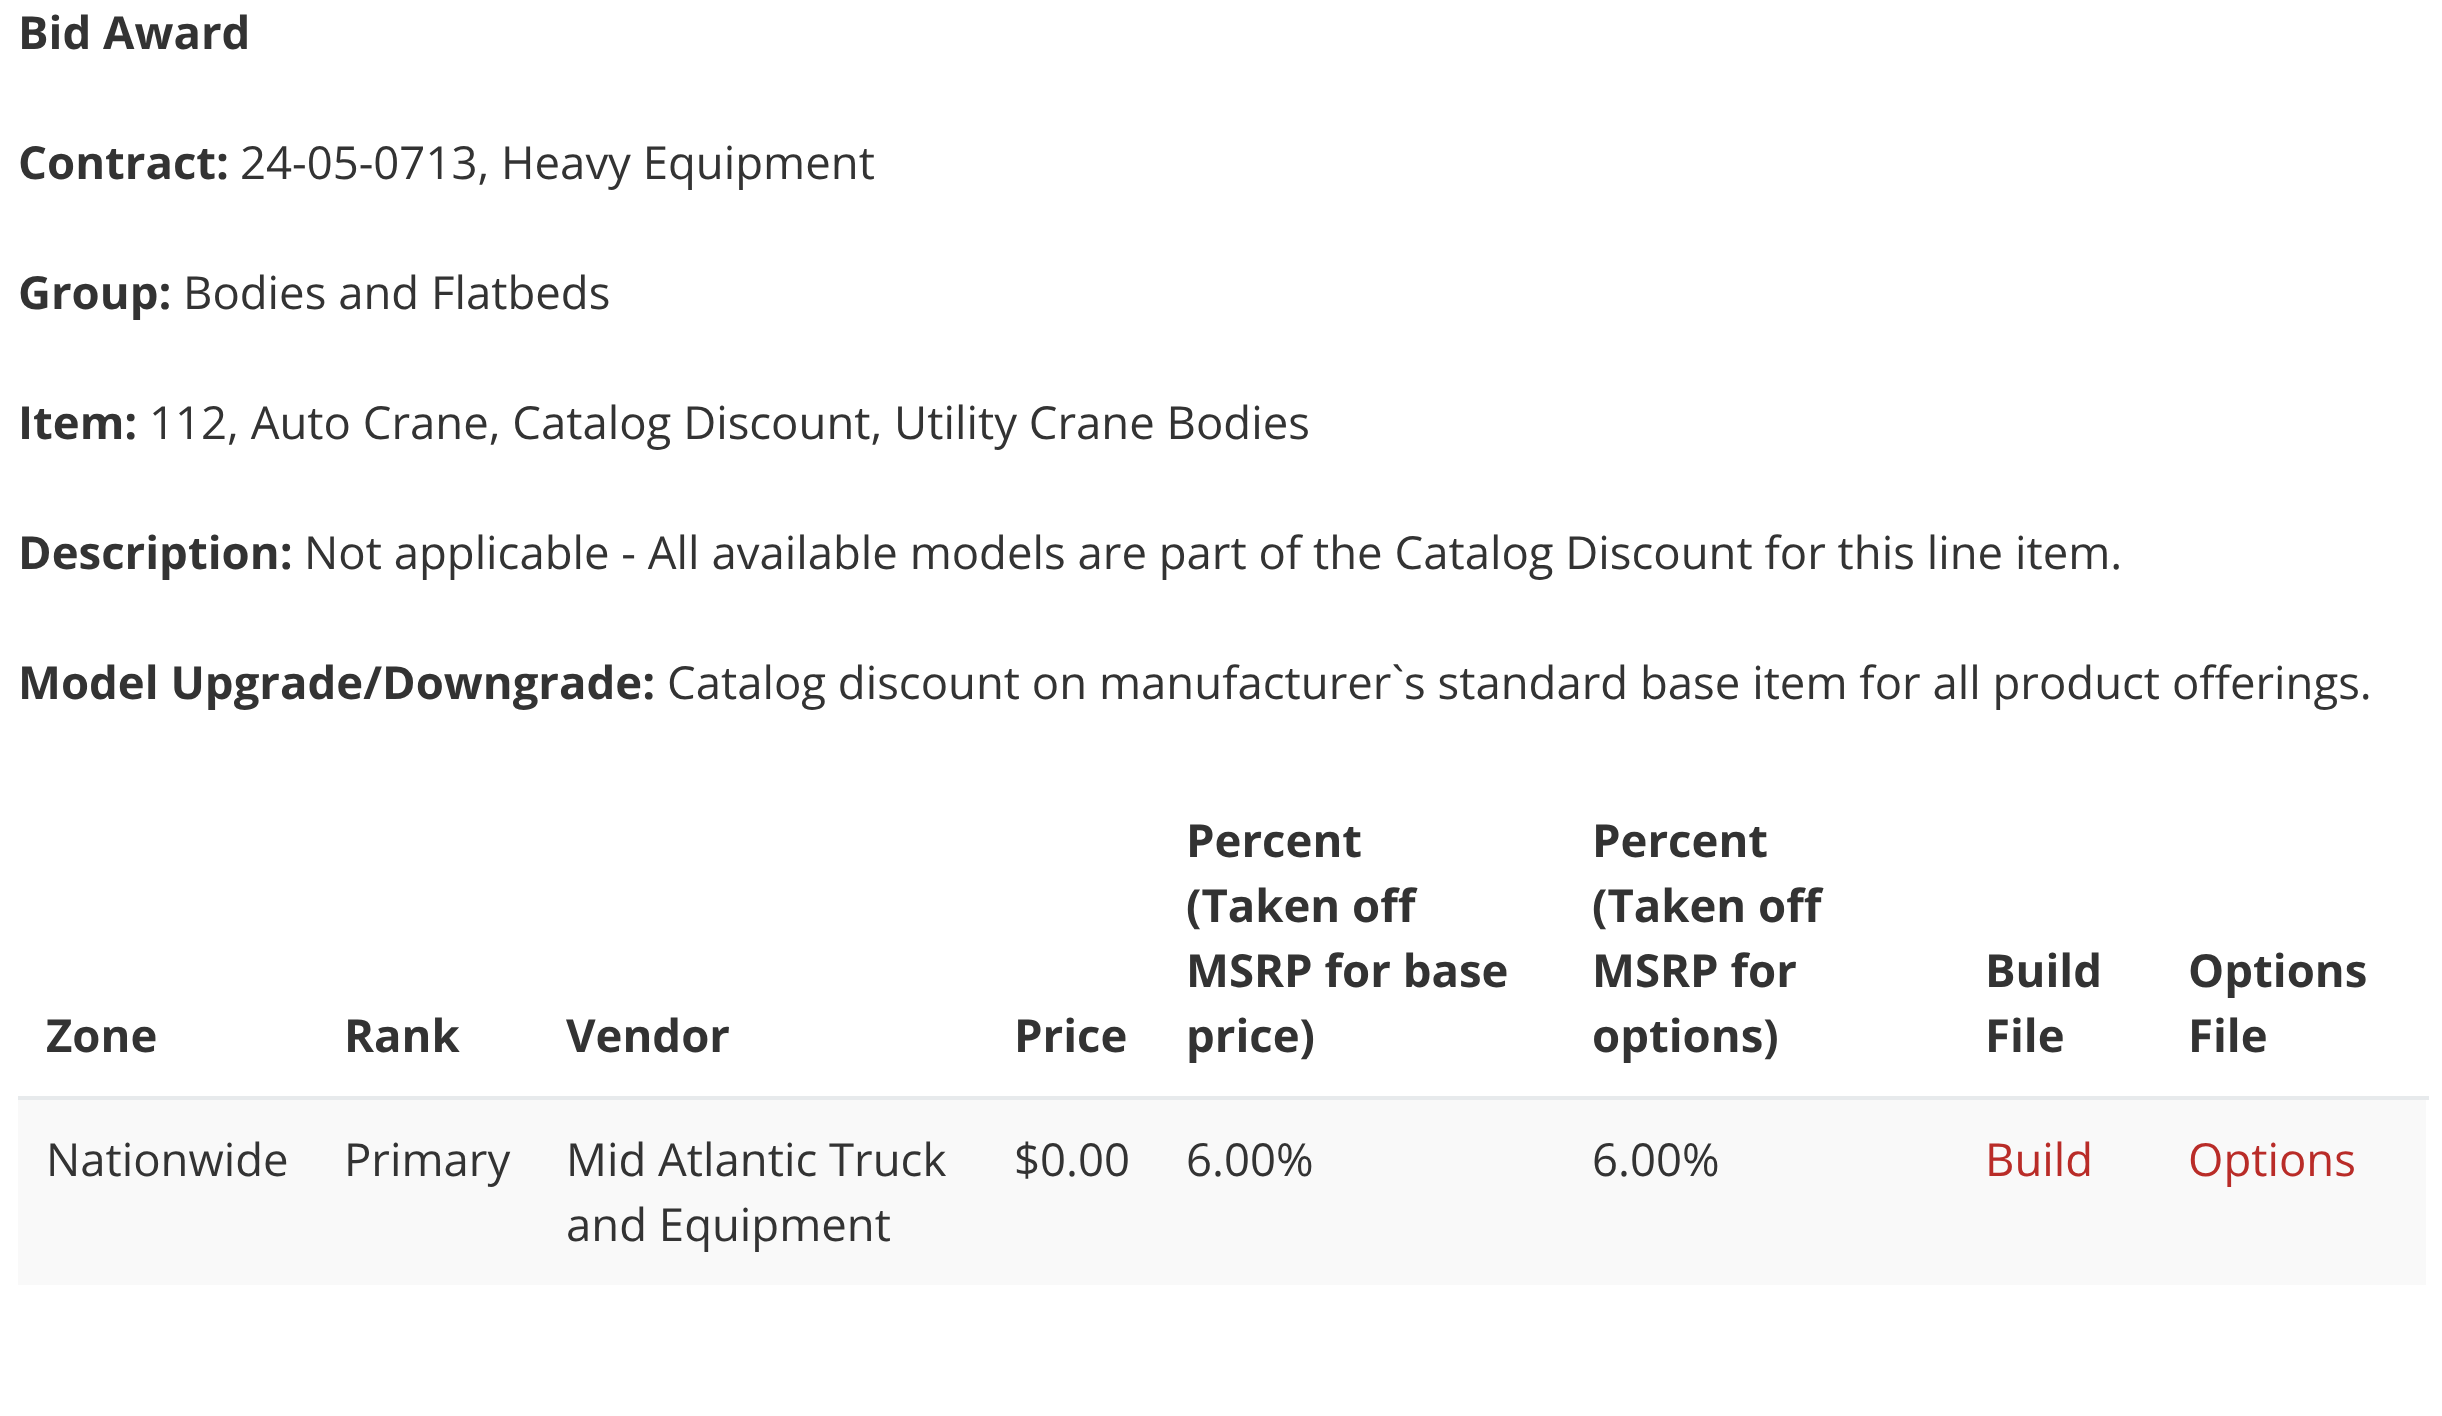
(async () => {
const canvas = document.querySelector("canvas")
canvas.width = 2442
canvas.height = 1416
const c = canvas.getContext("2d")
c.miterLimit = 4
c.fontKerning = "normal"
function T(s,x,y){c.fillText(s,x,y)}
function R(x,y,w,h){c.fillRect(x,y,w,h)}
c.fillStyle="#fff"
R(0,0,2442,1416)
c.font="bold 45.5px Open Sans"
c.fillStyle="#333"
T("Bid Award",18,49)
T("Contract:",18,179)
c.font="45.5px Open Sans"
T("24-05-0713, Heavy Equipment",240,179)
c.font="bold 45.5px Open Sans"
T("Group:",18,309)
c.font="45.5px Open Sans"
T("Bodies and Flatbeds",183,309)
c.font="bold 45.5px Open Sans"
T("Item:",18,439)
c.font="45.5px Open Sans"
T("112, Auto Crane, Catalog Discount, Utility Crane Bodies",149,439)
c.font="bold 45.5px Open Sans"
T("Description:",18,569)
c.font="45.5px Open Sans"
T("Not applicable - All available models are part of the Catalog Discount for this line item.",304,569)
c.font="bold 45.5px Open Sans"
T("Model Upgrade/Downgrade:",18,699)
c.font="45.5px Open Sans"
T("Catalog discount on manufacturer`s standard base item for all product offerings.",667,699)
c.font="bold 45.5px Open Sans"
T("Zone",46,1052)
T("Rank",344,1052)
T("Vendor",566,1052)
T("Price",1014,1052)
T("Percent",1186,857)
T("(Taken off",1186,922)
T("MSRP for base",1186,987)
T("price)",1186,1052)
T("Percent",1592,857)
T("(Taken off",1592,922)
T("MSRP for",1592,987)
T("options)",1592,1052)
T("Build",1985,987)
T("File",1985,1052)
T("Options",2188,987)
T("File",2188,1052)
c.fillStyle="#f9f9f9"
R(18,1100,2408,185)
c.font="45.5px Open Sans"
c.fillStyle="#333"
T("Nationwide",46,1176)
T("Primary",344,1176)
T("Mid Atlantic Truck",566,1176)
T("and Equipment",566,1241)
T("$0.00",1014,1176)
T("6.00%",1186,1176)
T("6.00%",1592,1176)
c.fillStyle="#b92c28"
T("Build",1985,1176)
c.fillStyle="#e7eaec"
R(18,1096,2411,4)
c.fillStyle="#b92c28"
T("Options",2188,1176)
})()
